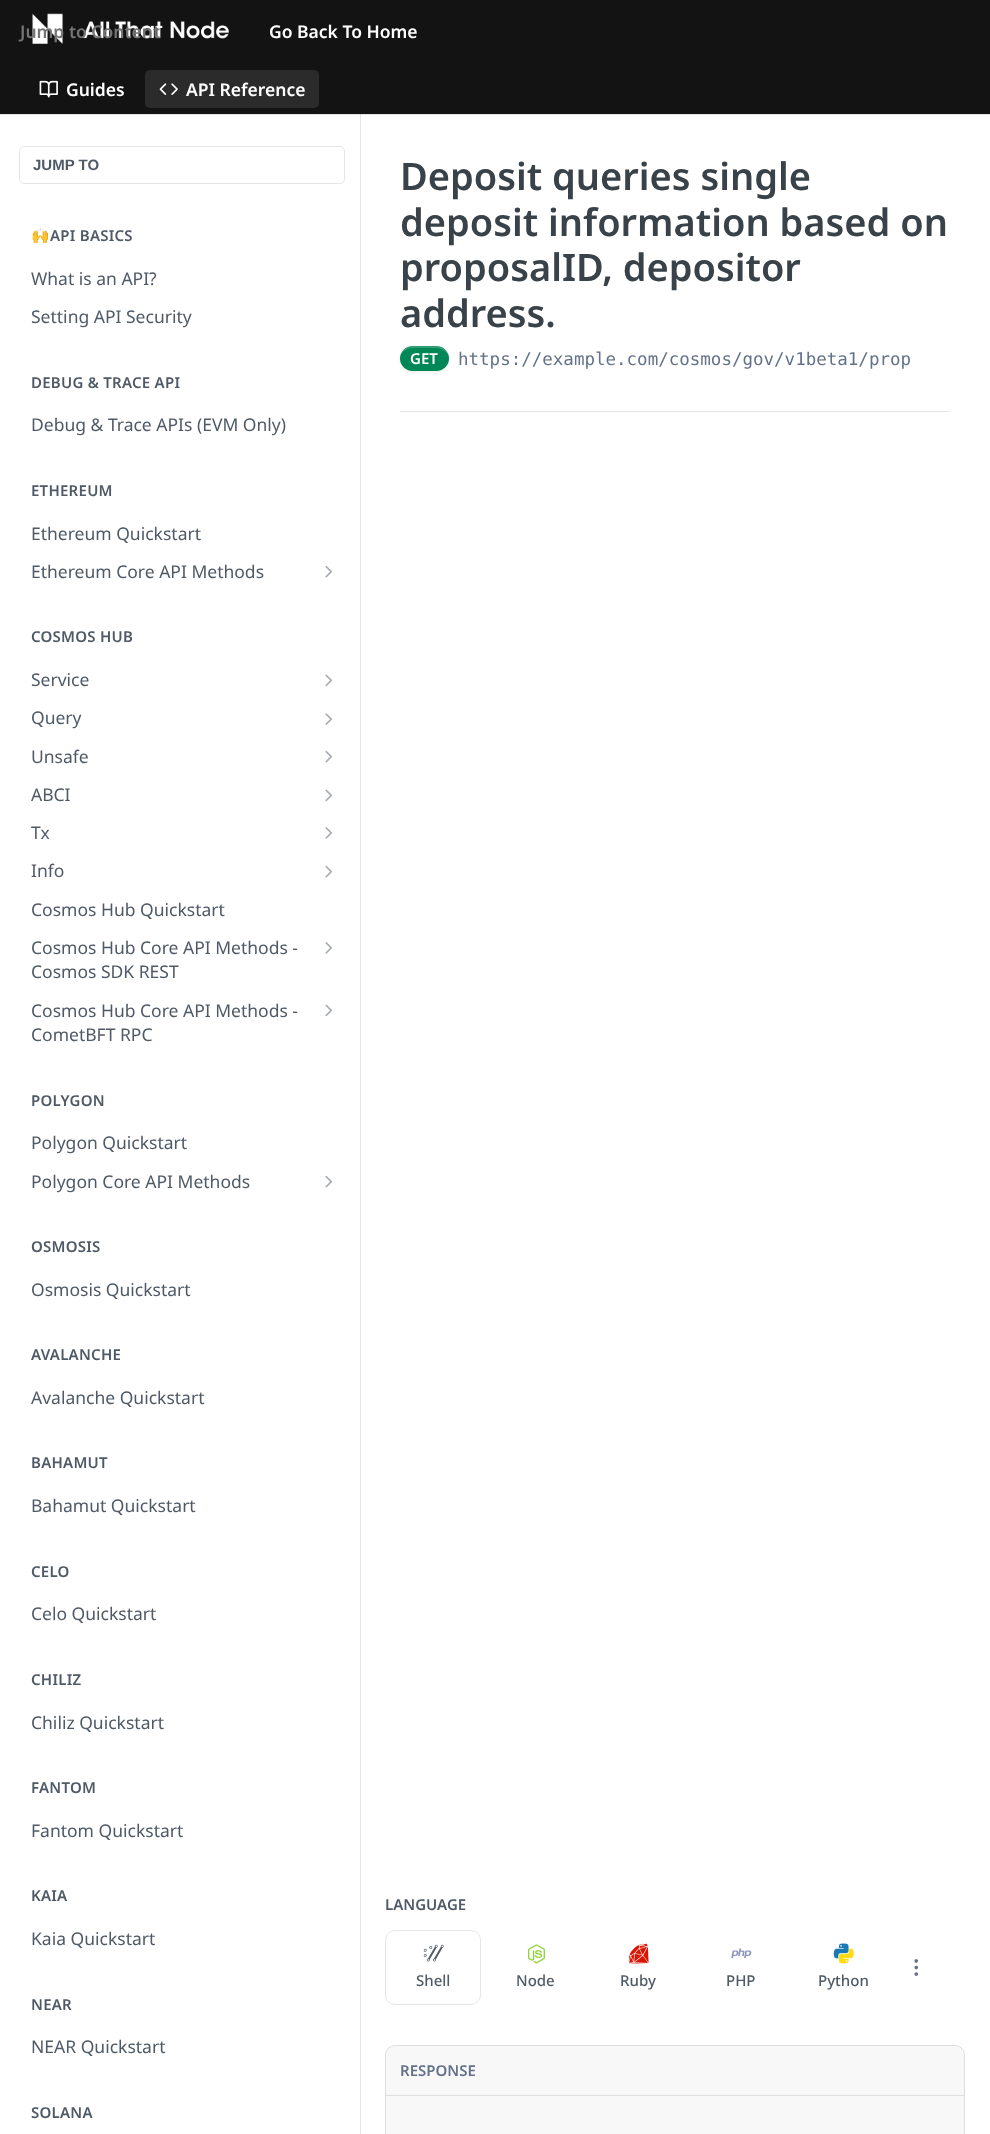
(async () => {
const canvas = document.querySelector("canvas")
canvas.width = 990
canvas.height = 2134
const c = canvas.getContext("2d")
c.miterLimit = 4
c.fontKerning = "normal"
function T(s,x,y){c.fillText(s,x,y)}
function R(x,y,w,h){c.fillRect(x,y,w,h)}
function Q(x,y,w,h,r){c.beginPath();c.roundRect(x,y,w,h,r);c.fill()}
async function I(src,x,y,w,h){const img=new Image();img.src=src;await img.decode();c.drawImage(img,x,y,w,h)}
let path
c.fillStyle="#fff"
R(0,0,990,2134)
c.fillStyle="#e6e6e6"
path = new Path2D("M1 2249h360v-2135h-1v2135z")
c.fill(path)
c.fillStyle="#0000001a"
R(0,114,990,1)
c.fillStyle="#131313"
R(0,0,990,114)
await I("1.png",32,13,197,31)
c.font="600 17.5px Noto Sans"
c.fillStyle="#757575"
T("Jump to Content",20,38)
c.fillStyle="#fff"
T("Go Back To Home",269,38)
await I("2.png",39,80,19,18)
T("Guides",66,96)
c.fillStyle="#2b2b2b"
Q(145,70,174,38,5)
await I("3.png",159,83,19,12)
c.fillStyle="#fff"
T("API Reference",186,96)
c.beginPath()
c.roundRect(19.5,146.5,325,37,4.5)
c.strokeStyle="#e6e6e6"
c.stroke()
c.font="bold 15px Liberation Sans"
c.fillStyle="#4f5a66"
T("JUMP TO",33,170)
c.letterSpacing="0.25px"
c.font="bold 15px Noto Color Emoji"
T("🙌",31,241)
c.font="600 15px Noto Sans"
T("API BASICS",50,241)
c.letterSpacing="0px"
c.font="17.5px Noto Sans"
T("What is an API?",31,285)
T("Setting API Security",31,323)
c.letterSpacing="0.25px"
c.font="600 15px Noto Sans"
T("DEBUG & TRACE API",31,388)
c.letterSpacing="0px"
c.font="17.5px Noto Sans"
T("Debug & Trace APIs (EVM Only)",31,431)
c.letterSpacing="0.25px"
c.font="600 15px Noto Sans"
T("ETHEREUM",31,496)
c.letterSpacing="0px"
c.font="17.5px Noto Sans"
T("Ethereum Quickstart",31,540)
T("Ethereum Core API Methods",31,578)
await I("4.png",325,565,7,13)
c.letterSpacing="0.25px"
c.font="600 15px Noto Sans"
T("COSMOS HUB",31,642)
c.letterSpacing="0px"
c.font="17.5px Noto Sans"
T("Service",31,686)
await I("5.png",325,674,7,13)
T("Query",31,724)
await I("6.png",325,713,7,12)
T("Unsafe",31,763)
await I("4.png",325,750,7,13)
T("ABCI",31,801)
await I("5.png",325,789,7,13)
T("Tx",31,839)
await I("7.png",325,827,7,12)
T("Info",31,877)
await I("4.png",325,865,7,13)
T("Cosmos Hub Quickstart",31,916)
T("Cosmos Hub Core API Methods -",31,954)
T("Cosmos SDK REST",31,978)
await I("7.png",325,942,7,12)
T("Cosmos Hub Core API Methods -",31,1017)
T("CometBFT RPC",31,1041)
await I("5.png",325,1004,7,13)
c.letterSpacing="0.25px"
c.font="600 15px Noto Sans"
T("POLYGON",31,1106)
c.letterSpacing="0px"
c.font="17.5px Noto Sans"
T("Polygon Quickstart",31,1149)
T("Polygon Core API Methods",31,1188)
await I("4.png",325,1175,7,13)
c.letterSpacing="0.25px"
c.font="600 15px Noto Sans"
T("OSMOSIS",31,1252)
c.letterSpacing="0px"
c.font="17.5px Noto Sans"
T("Osmosis Quickstart",31,1296)
c.letterSpacing="0.25px"
c.font="600 15px Noto Sans"
T("AVALANCHE",31,1360)
c.letterSpacing="0px"
c.font="17.5px Noto Sans"
T("Avalanche Quickstart",31,1404)
c.letterSpacing="0.25px"
c.font="600 15px Noto Sans"
T("BAHAMUT",31,1468)
c.letterSpacing="0px"
c.font="17.5px Noto Sans"
T("Bahamut Quickstart",31,1512)
c.letterSpacing="0.25px"
c.font="600 15px Noto Sans"
T("CELO",31,1577)
c.letterSpacing="0px"
c.font="17.5px Noto Sans"
T("Celo Quickstart",31,1620)
c.letterSpacing="0.25px"
c.font="600 15px Noto Sans"
T("CHILIZ",31,1685)
c.letterSpacing="0px"
c.font="17.5px Noto Sans"
T("Chiliz Quickstart",31,1729)
c.letterSpacing="0.25px"
c.font="600 15px Noto Sans"
T("FANTOM",31,1793)
c.letterSpacing="0px"
c.font="17.5px Noto Sans"
T("Fantom Quickstart",31,1837)
c.letterSpacing="0.25px"
c.font="600 15px Noto Sans"
T("KAIA",31,1901)
c.letterSpacing="0px"
c.font="17.5px Noto Sans"
T("Kaia Quickstart",31,1945)
c.letterSpacing="0.25px"
c.font="600 15px Noto Sans"
T("NEAR",31,2010)
c.letterSpacing="0px"
c.font="17.5px Noto Sans"
T("NEAR Quickstart",31,2053)
c.letterSpacing="0.25px"
c.font="600 15px Noto Sans"
T("SOLANA",31,2118)
c.fillStyle="#e6e6e6"
R(400,411,550,1)
c.letterSpacing="0px"
c.font="600 38px Noto Sans"
c.fillStyle="#384248"
T("Deposit queries single",400,190)
T("deposit information based on",400,236)
T("proposalID, depositor",400,281)
T("address.",400,327)
c.fillStyle="#0000000d"
c.filter="blur(1px)"
c.beginPath()
c.roundRect(400,348,49,25,12.5)
c.fill()
c.filter="none"
c.fillStyle="#008756"
Q(400,346,49,25,12.5)
c.fillStyle="#ffffff33"
path = new Path2D("M412 348h24c7 0 13 5 13 11c0-2-1-5-2-7c-5-8-15-6-23-6c-7 0-17-2-22 6c-1 2-2 5-2 7c0-6 6-11 12-11z")
c.fill(path)
c.font="600 15px Noto Sans"
c.fillStyle="#fff"
T("GET",410,364)
c.font="17.5px DejaVu Sans Mono"
c.fillStyle="#637288"
T("https://example.com/cosmos/gov/v1beta1/prop",458,365)
c.font="600 15px Noto Sans"
c.fillStyle="#4f5a66"
T("LANGUAGE",385,1910)
await I("8.png",914,1959,5,17)
c.beginPath()
c.roundRect(385.5,1930.5,95,74,9.5)
c.stroke()
await I("9.png",423,1944,21,18)
c.font="500 15px Noto Sans"
T("Shell",416,1986)
await I("10.png",528,1944,17,20)
T("Node",516,1986)
await I("11.png",628,1943,21,21)
T("Ruby",620,1986)
await I("12.png",731,1948,21,11)
T("PHP",726,1986)
await I("13.png",833,1943,16,16)
await I("14.png",838,1948,16,16)
T("Python",818,1986)
c.fillStyle="#f8f8f8"
path = new Path2D("M395 2045h560c5.5 0 10 4.5 10 10v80h-580v-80c0-5.5 4.5-10 10-10z")
c.fill(path)
c.beginPath()
c.roundRect(385.5,2045.5,579,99,9.5)
c.strokeStyle="#0000001a"
c.stroke()
c.fillStyle="#dfdfdf"
R(386,2095,578,1)
c.font="600 15px Noto Sans"
c.fillStyle="#637288"
T("RESPONSE",400,2076)
})()
